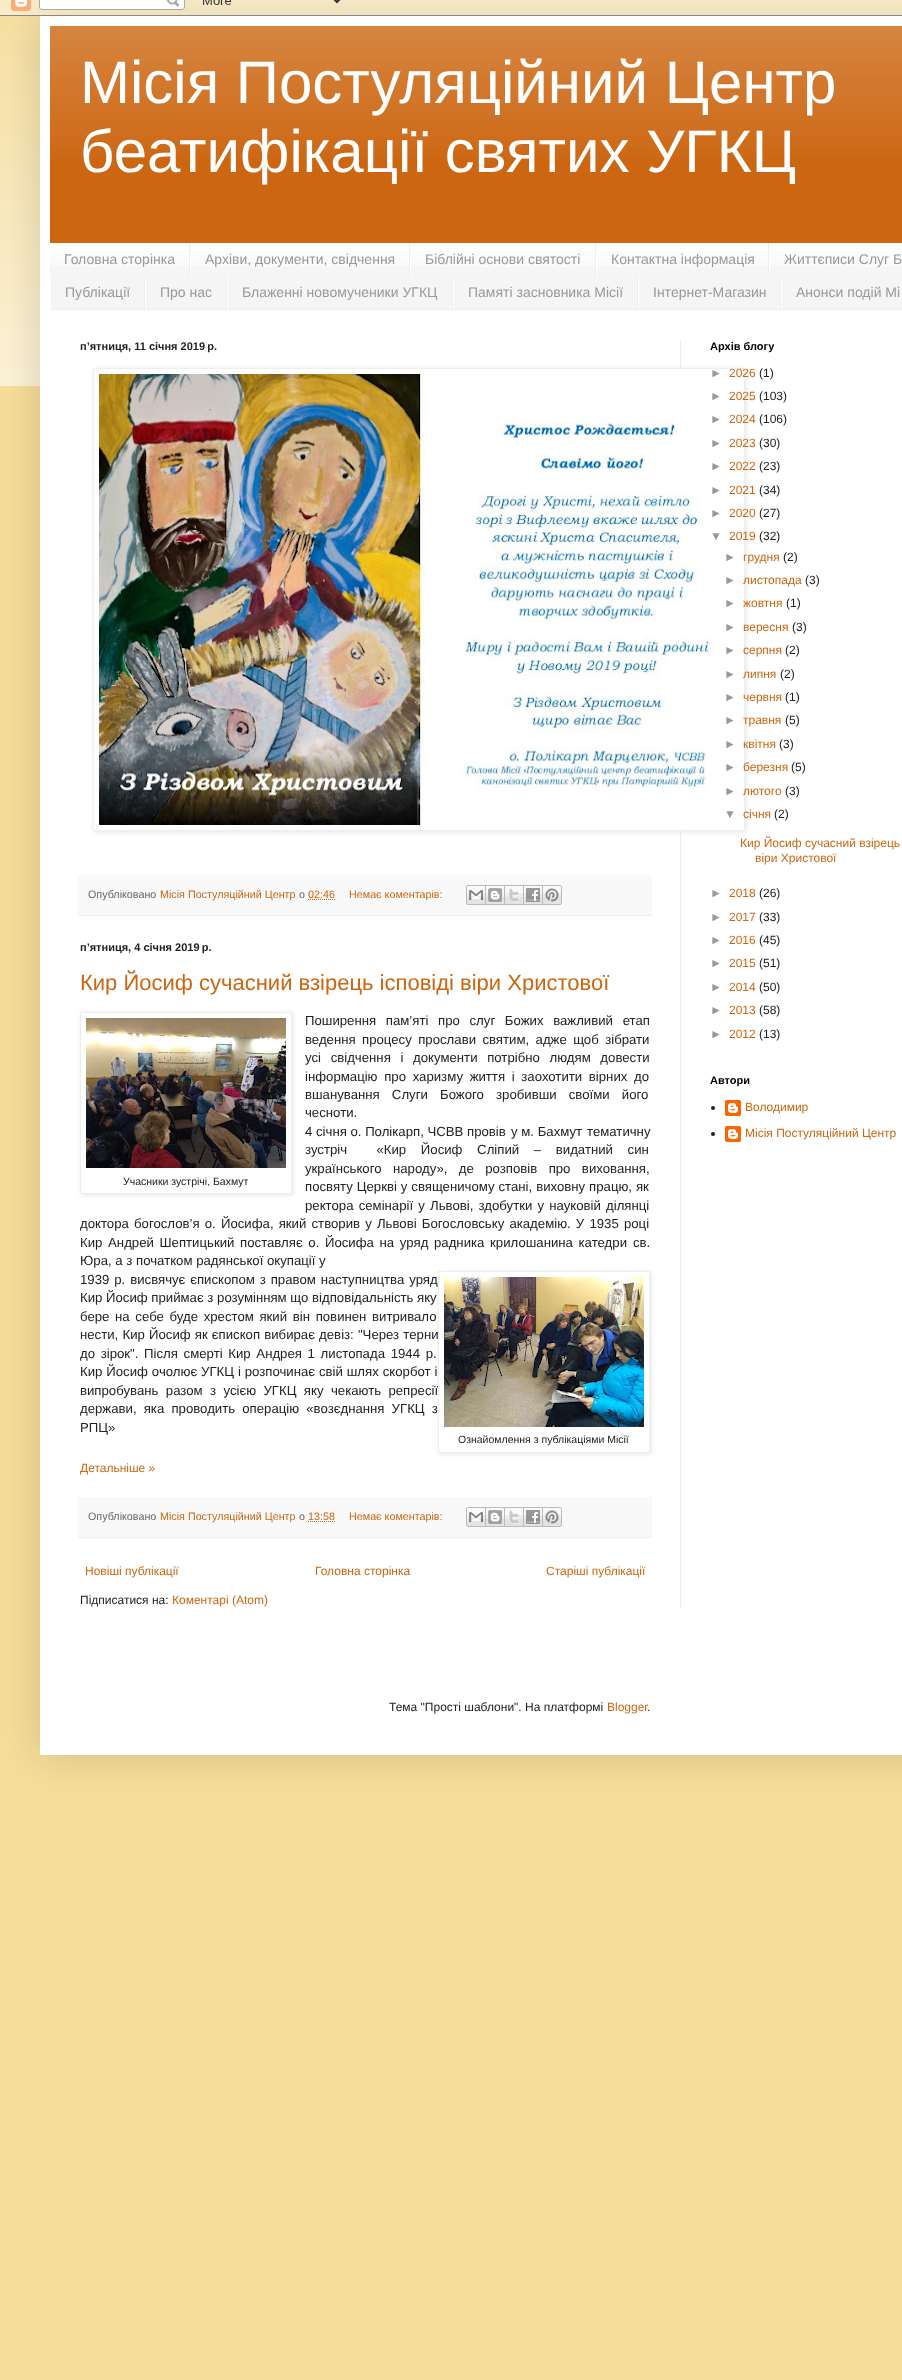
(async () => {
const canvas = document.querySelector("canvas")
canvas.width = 902
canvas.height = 2380
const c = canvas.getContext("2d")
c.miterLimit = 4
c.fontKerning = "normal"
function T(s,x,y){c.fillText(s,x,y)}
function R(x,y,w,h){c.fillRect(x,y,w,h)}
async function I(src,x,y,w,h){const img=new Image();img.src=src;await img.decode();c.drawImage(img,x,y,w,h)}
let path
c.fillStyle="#f6dd99"
R(0,0,902,2380)
await I("1.png",0,0,902,386)
c.fillStyle="#00000026"
c.filter="blur(20px)"
c.beginPath()
c.rect(40,16,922,1739)
c.fill()
c.filter="none"
await I("2.png",0,0,902,16)
c.fillStyle="#fff"
R(40,16,862,1739)
c.fillStyle="#c61"
R(50,26,852,217)
await I("3.png",50,26,852,133)
c.font="60px Liberation Sans"
c.fillStyle="#fff"
T("Місія Постуляційний Центр",80,103)
T("беатифікації святих УГКЦ",80,172)
c.fillStyle="#f5f5f5"
R(50,244,852,65)
await I("4.png",50,243,852,24)
c.fillStyle="#eee"
R(50,309,852,1)
R(189,243,1,33)
c.font="14px Liberation Sans"
c.fillStyle="#999"
T("Головна сторінка",64,264)
c.fillStyle="#eee"
R(409,243,1,33)
c.fillStyle="#fff"
R(190,254,1,22)
c.fillStyle="#999"
T("Архіви, документи, свідчення",205,264)
c.fillStyle="#eee"
R(595,243,1,33)
c.fillStyle="#fff"
R(410,254,1,22)
c.fillStyle="#999"
T("Біблійні основи святості",425,264)
c.fillStyle="#eee"
R(768,243,1,33)
c.fillStyle="#fff"
R(596,254,1,22)
c.fillStyle="#999"
T("Контактна інформація",611,264)
c.fillStyle="#fff"
R(769,254,1,22)
c.fillStyle="#999"
T("Життєписи Слуг Б",784,264)
c.fillStyle="#eee"
R(144,276,1,33)
c.fillStyle="#fff"
R(50,276,1,33)
c.fillStyle="#999"
T("Публікації",65,297)
c.fillStyle="#eee"
R(226,276,1,33)
c.fillStyle="#fff"
R(145,276,1,33)
c.fillStyle="#999"
T("Про нас",160,297)
c.fillStyle="#eee"
R(452,276,1,33)
c.fillStyle="#fff"
R(227,276,1,33)
c.fillStyle="#999"
T("Блаженні новомученики УГКЦ",242,297)
c.fillStyle="#eee"
R(637,276,1,33)
c.fillStyle="#fff"
R(453,276,1,33)
c.fillStyle="#999"
T("Памяті засновника Місії",468,297)
c.fillStyle="#eee"
R(780,276,1,33)
c.fillStyle="#fff"
R(638,276,1,33)
c.fillStyle="#999"
T("Інтернет-Магазин",653,297)
c.fillStyle="#fff"
R(781,276,1,33)
c.fillStyle="#999"
T("Анонси подій Мі",796,297)
c.fillStyle="#eee"
R(680,340,1,1269)
c.font="bold 11px Liberation Sans"
c.fillStyle="#222"
T("пʼятниця, 11 січня 2019 р.",80,350)
c.fillStyle="#0000001a"
c.filter="blur(2.5px)"
c.beginPath()
c.rect(94,369,652,463)
c.fill()
c.filter="none"
c.fillStyle="#fff"
c.beginPath()
c.rect(93.5,368.5,651,462)
c.fill()
c.strokeStyle="#eee"
c.stroke()
await I("5.png",99,374,616,451)
c.fillStyle="#f9f9f9"
R(78,875,574,40)
c.fillStyle="#eee"
R(78,915,574,1)
c.font="10.75px Liberation Sans"
c.fillStyle="#666"
T("Опубліковано",88,898)
c.fillStyle="#c61"
T("Місія Постуляційний Центр",160,898)
c.fillStyle="#666"
T("о",299,898)
c.fillStyle="#c61"
T("02:46",308,898)
path = new Path2D("M308 899.5h27")
c.strokeStyle="#c61"
c.setLineDash([1,1])
c.stroke(path)
T("Немає коментарів:",349,898)
await I("6.png",466,885,20,20)
await I("7.png",486,885,19,20)
await I("8.png",505,885,19,20)
await I("9.png",524,885,19,20)
await I("10.png",543,885,19,20)
c.font="bold 11px Liberation Sans"
c.fillStyle="#222"
T("пʼятниця, 4 січня 2019 р.",80,951)
c.font="22px Liberation Sans"
c.fillStyle="#c61"
T("Кир Йосиф сучасний взірець ісповіді віри Христової",80,990)
c.wordSpacing="6px"
c.font="13.2px Liberation Sans"
c.fillStyle="#222"
T("Поширення пам’яті про слуг Божих важливий етап",305,1025)
c.wordSpacing="2.75px"
T("ведення процесу прослави святим, адже щоб зібрати",305,1044)
c.wordSpacing="6px"
T("усі свідчення і документи потрібно людям довести",305,1062)
c.wordSpacing="3px"
T("інформацію про харизму життя і заохотити вірних до",305,1081)
c.wordSpacing="8.5px"
T("вшанування Слуги Божого зробивши своїми його",305,1099)
c.wordSpacing="0px"
T("чесноти.",305,1117)
T("4 січня о. Полікарп, ЧСВВ провів",305,1136)
T("у м. Бахмут",511,1136)
T("тематичну",587,1136)
c.wordSpacing="11px"
T("зустріч  «Кир Йосиф Сліпий – видатний син",305,1154)
c.wordSpacing="7.75px"
T("українського народу», де розповів про виховання,",305,1173)
c.wordSpacing="0.25px"
T("посвяту Церкві у священичому стані, виховну працю, як",305,1191)
c.wordSpacing="1.5px"
T("ректора семінарії у Львові, здобутки у науковій ділянці",305,1210)
T("доктора богослов’я о. Йосифа, який створив у Львові Богословську академію. У 1935 році",80,1228)
c.wordSpacing="2px"
T("Кир Андрей Шептицький поставляє о. Йосифа на уряд радника крилошанина катедри",80,1247)
c.wordSpacing="0px"
T("св.",633,1247)
T("Юра, а з початком радянської окупації у",80,1265)
c.save()
path = new Path2D("M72 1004h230v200h-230zm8 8h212v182h-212z")
c.clip(path,"evenodd")
c.fillStyle="#0000001a"
c.filter="blur(2.5px)"
c.beginPath()
c.rect(81,1013,212,182)
c.fill()
c.filter="none"
c.restore()
c.strokeStyle="#eee"
c.setLineDash([])
c.strokeRect(80.5,1012.5,211,181)
await I("11.png",86,1018,200,150)
c.font="10.5px Liberation Sans"
T("Учасники зустрічі, Бахмут",123,1185)
c.wordSpacing="1.25px"
c.font="13.2px Liberation Sans"
T("1939 р. висвячує єпископом з правом наступництва уряд",80,1284)
c.wordSpacing="0px"
T("Кир Йосиф приймає з розумінням що відповідальність яку",80,1302)
c.wordSpacing="2px"
T("бере на себе буде хрестом який він повинен витривало",80,1321)
c.wordSpacing="0.5px"
T("нести, Кир Йосиф як єпископ вибирає девіз: \"Через терни",80,1339)
c.wordSpacing="2px"
T("до зірок\". Після смерті Кир Андрея 1 листопада 1944 р.",80,1358)
c.wordSpacing="0.25px"
T("Кир Йосиф очолює УГКЦ і розпочинає свій шлях скорбот і",80,1376)
c.wordSpacing="3.75px"
T("випробувань разом з усією УГКЦ яку чекають репресії",80,1395)
c.wordSpacing="3.5px"
T("держави, яка проводить операцію «возєднання УГКЦ з",80,1413)
c.wordSpacing="0px"
T("РПЦ»",80,1432)
c.save()
path = new Path2D("M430 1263h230v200h-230zm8 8h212v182h-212z")
c.clip(path,"evenodd")
c.fillStyle="#0000001a"
c.filter="blur(2.5px)"
c.beginPath()
c.rect(439,1272,212,182)
c.fill()
c.filter="none"
c.restore()
c.strokeRect(438.5,1271.5,211,181)
await I("12.png",444,1277,200,150)
c.font="10.5px Liberation Sans"
T("Ознайомлення з публікаціями Місії",458,1443)
c.font="12px Liberation Sans"
c.fillStyle="#c61"
T("Детальніше »",80,1472)
c.fillStyle="#f9f9f9"
R(78,1497,574,40)
c.fillStyle="#eee"
R(78,1537,574,1)
c.font="10.75px Liberation Sans"
c.fillStyle="#666"
T("Опубліковано",88,1520)
c.fillStyle="#c61"
T("Місія Постуляційний Центр",160,1520)
c.fillStyle="#666"
T("о",299,1520)
c.fillStyle="#c61"
T("13:58",308,1520)
path = new Path2D("M308 1521.5h27")
c.strokeStyle="#c61"
c.setLineDash([1,1])
c.stroke(path)
T("Немає коментарів:",349,1520)
await I("6.png",466,1507,20,20)
await I("7.png",486,1507,19,20)
await I("8.png",505,1507,19,20)
await I("9.png",524,1507,19,20)
await I("10.png",543,1507,19,20)
c.font="12px Liberation Sans"
T("Новіші публікації",85,1575)
T("Головна сторінка",315,1575)
T("Старіші публікації",546,1575)
c.fillStyle="#222"
T("Підписатися на:",80,1604)
c.fillStyle="#c61"
T("Коментарі (Atom)",172,1604)
c.font="bold 11px Liberation Sans"
c.fillStyle="#000"
T("Архів блогу",710,350)
c.font="12px Liberation Sans"
c.fillStyle="#999"
T("►",710,377)
c.fillStyle="#c61"
T("2026",729,377)
c.fillStyle="#222"
T("(1)",759,377)
c.fillStyle="#999"
T("►",710,400)
c.fillStyle="#c61"
T("2025",729,400)
c.fillStyle="#222"
T("(103)",759,400)
c.fillStyle="#999"
T("►",710,423)
c.fillStyle="#c61"
T("2024",729,423)
c.fillStyle="#222"
T("(106)",759,423)
c.fillStyle="#999"
T("►",710,447)
c.fillStyle="#c61"
T("2023",729,447)
c.fillStyle="#222"
T("(30)",759,447)
c.fillStyle="#999"
T("►",710,470)
c.fillStyle="#c61"
T("2022",729,470)
c.fillStyle="#222"
T("(23)",759,470)
c.fillStyle="#999"
T("►",710,494)
c.fillStyle="#c61"
T("2021",729,494)
c.fillStyle="#222"
T("(34)",759,494)
c.fillStyle="#999"
T("►",710,517)
c.fillStyle="#c61"
T("2020",729,517)
c.fillStyle="#222"
T("(27)",759,517)
c.fillStyle="#999"
T("▼",710,540)
c.fillStyle="#c61"
T("2019",729,540)
c.fillStyle="#222"
T("(32)",759,540)
c.fillStyle="#999"
T("►",724,561)
c.fillStyle="#c61"
T("грудня",743,561)
c.fillStyle="#222"
T("(2)",783,561)
c.fillStyle="#999"
T("►",724,584)
c.fillStyle="#c61"
T("листопада",743,584)
c.fillStyle="#222"
T("(3)",805,584)
c.fillStyle="#999"
T("►",724,607)
c.fillStyle="#c61"
T("жовтня",743,607)
c.fillStyle="#222"
T("(1)",786,607)
c.fillStyle="#999"
T("►",724,631)
c.fillStyle="#c61"
T("вересня",743,631)
c.fillStyle="#222"
T("(3)",792,631)
c.fillStyle="#999"
T("►",724,654)
c.fillStyle="#c61"
T("серпня",743,654)
c.fillStyle="#222"
T("(2)",785,654)
c.fillStyle="#999"
T("►",724,678)
c.fillStyle="#c61"
T("липня",743,678)
c.fillStyle="#222"
T("(2)",780,678)
c.fillStyle="#999"
T("►",724,701)
c.fillStyle="#c61"
T("червня",743,701)
c.fillStyle="#222"
T("(1)",785,701)
c.fillStyle="#999"
T("►",724,724)
c.fillStyle="#c61"
T("травня",743,724)
c.fillStyle="#222"
T("(5)",785,724)
c.fillStyle="#999"
T("►",724,748)
c.fillStyle="#c61"
T("квітня",743,748)
c.fillStyle="#222"
T("(3)",779,748)
c.fillStyle="#999"
T("►",724,771)
c.fillStyle="#c61"
T("березня",743,771)
c.fillStyle="#222"
T("(5)",791,771)
c.fillStyle="#999"
T("►",724,795)
c.fillStyle="#c61"
T("лютого",743,795)
c.fillStyle="#222"
T("(3)",785,795)
c.fillStyle="#999"
T("▼",724,818)
c.fillStyle="#c61"
T("січня",743,818)
c.fillStyle="#222"
T("(2)",774,818)
c.fillStyle="#c61"
T("Кир Йосиф сучасний взірець",740,847)
T("віри Христової",755,862)
c.fillStyle="#999"
T("►",710,897)
c.fillStyle="#c61"
T("2018",729,897)
c.fillStyle="#222"
T("(26)",759,897)
c.fillStyle="#999"
T("►",710,921)
c.fillStyle="#c61"
T("2017",729,921)
c.fillStyle="#222"
T("(33)",759,921)
c.fillStyle="#999"
T("►",710,944)
c.fillStyle="#c61"
T("2016",729,944)
c.fillStyle="#222"
T("(45)",759,944)
c.fillStyle="#999"
T("►",710,967)
c.fillStyle="#c61"
T("2015",729,967)
c.fillStyle="#222"
T("(51)",759,967)
c.fillStyle="#999"
T("►",710,991)
c.fillStyle="#c61"
T("2014",729,991)
c.fillStyle="#222"
T("(50)",759,991)
c.fillStyle="#999"
T("►",710,1014)
c.fillStyle="#c61"
T("2013",729,1014)
c.fillStyle="#222"
T("(58)",759,1014)
c.fillStyle="#999"
T("►",710,1038)
c.fillStyle="#c61"
T("2012",729,1038)
c.fillStyle="#222"
T("(13)",759,1038)
c.font="bold 11px Liberation Sans"
c.fillStyle="#000"
T("Автори",710,1084)
c.fillStyle="#222"
c.beginPath()
c.arc(713,1108,2,0,7)
c.fill()
await I("13.png",725,1100,16,16)
c.font="12px Liberation Sans"
c.fillStyle="#c61"
T("Володимир",745,1111)
c.fillStyle="#222"
c.beginPath()
c.arc(713,1134,2,0,7)
c.fill()
await I("13.png",725,1126,16,16)
c.fillStyle="#c61"
T("Місія Постуляційний Центр",745,1137)
c.fillStyle="#222"
T("Тема \"Прості шаблони\". На платформі",389,1711)
c.fillStyle="#c61"
T("Blogger",607,1711)
c.fillStyle="#222"
T(".",647,1711)
})()
